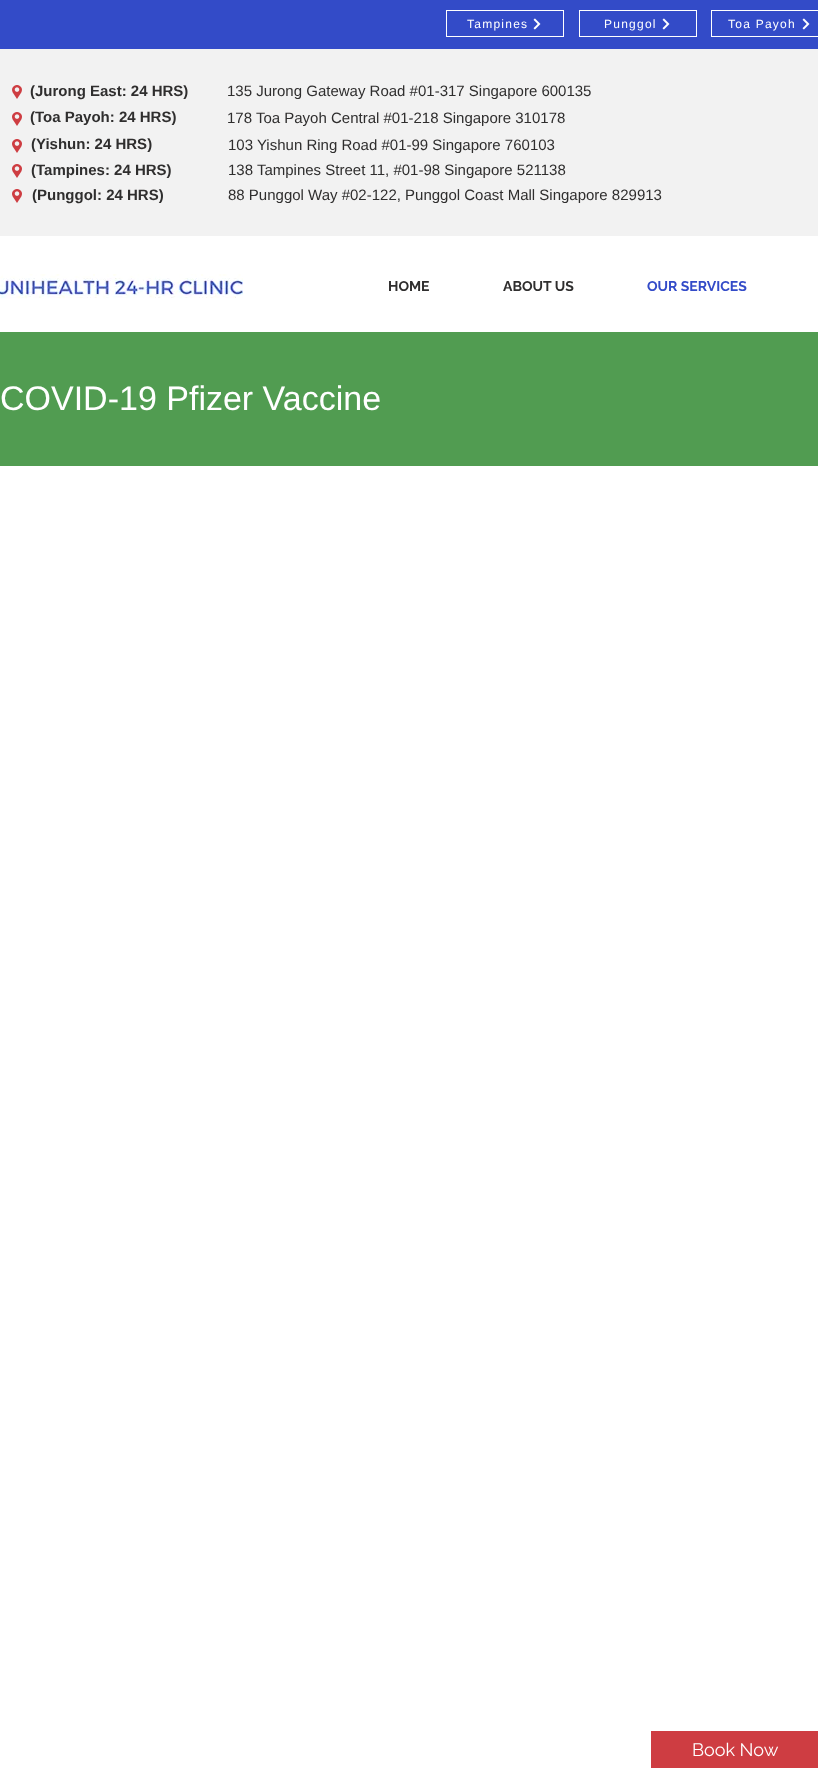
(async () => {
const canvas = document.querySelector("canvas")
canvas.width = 818
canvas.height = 1768
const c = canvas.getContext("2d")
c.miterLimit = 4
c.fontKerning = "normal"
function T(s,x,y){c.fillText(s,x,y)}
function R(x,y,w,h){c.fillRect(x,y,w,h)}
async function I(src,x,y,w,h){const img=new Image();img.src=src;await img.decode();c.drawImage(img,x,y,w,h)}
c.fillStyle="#fff"
R(0,0,818,1768)
c.fillStyle="#334bc8"
R(0,0,818,49)
c.strokeStyle="#fff"
c.strokeRect(446.5,10.5,117,26)
c.letterSpacing="1.25px"
c.font="12px Liberation Sans"
c.fillStyle="#fff"
T("Tampines",467,28)
await I("1.png",533,18,8,12)
c.strokeRect(579.5,10.5,117,26)
T("Punggol",604,28)
await I("1.png",662,18,8,12)
c.strokeRect(711.5,10.5,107,26)
T("Toa Payoh",728,28)
await I("1.png",802,18,8,12)
c.fillStyle="#f2f2f2"
R(0,49,818,187)
await I("2.png",12,85,10,14)
c.letterSpacing="0px"
c.font="bold 15px Liberation Sans"
c.fillStyle="#2f2e2e"
T("(Jurong East: 24 HRS)",30,96)
c.font="15px Liberation Sans"
T("135 Jurong Gateway Road #01-317 Singapore 600135",227,96)
await I("3.png",12,112,10,14)
c.font="bold 15px Liberation Sans"
T("(Toa Payoh: 24 HRS)",30,122)
c.font="15px Liberation Sans"
T("178 Toa Payoh Central #01-218 Singapore 310178",227,123)
await I("3.png",12,139,10,14)
c.font="bold 15px Liberation Sans"
T("(Yishun: 24 HRS)",31,149)
c.font="15px Liberation Sans"
T("103 Yishun Ring Road #01-99 Singapore 760103",228,150)
await I("3.png",12,164,10,14)
c.font="bold 15px Liberation Sans"
T("(Tampines: 24 HRS)",31,175)
c.font="15px Liberation Sans"
T("138 Tampines Street 11, #01-98 Singapore 521138",228,175)
await I("3.png",12,189,10,14)
c.font="bold 15px Liberation Sans"
T("(Punggol: 24 HRS)",32,200)
c.font="15px Liberation Sans"
T("88 Punggol Way #02-122, Punggol Coast Mall Singapore 829913",228,200)
await I("4.png",0,274,243,25)
c.font="bold 14px Raleway"
T("HOME",388,291)
T("ABOUT US",503,291)
c.fillStyle="#334bc8"
T("OUR SERVICES",647,291)
c.fillStyle="#519c51"
R(0,332,818,134)
c.font="34px Liberation Sans"
c.fillStyle="#fff"
T("COVID-19 Pfizer Vaccine",0,410)
c.fillStyle="#ce3d42"
R(651,1731,167,37)
c.font="18px Raleway"
c.fillStyle="#fff"
T("Book Now",692,1756)
})()
